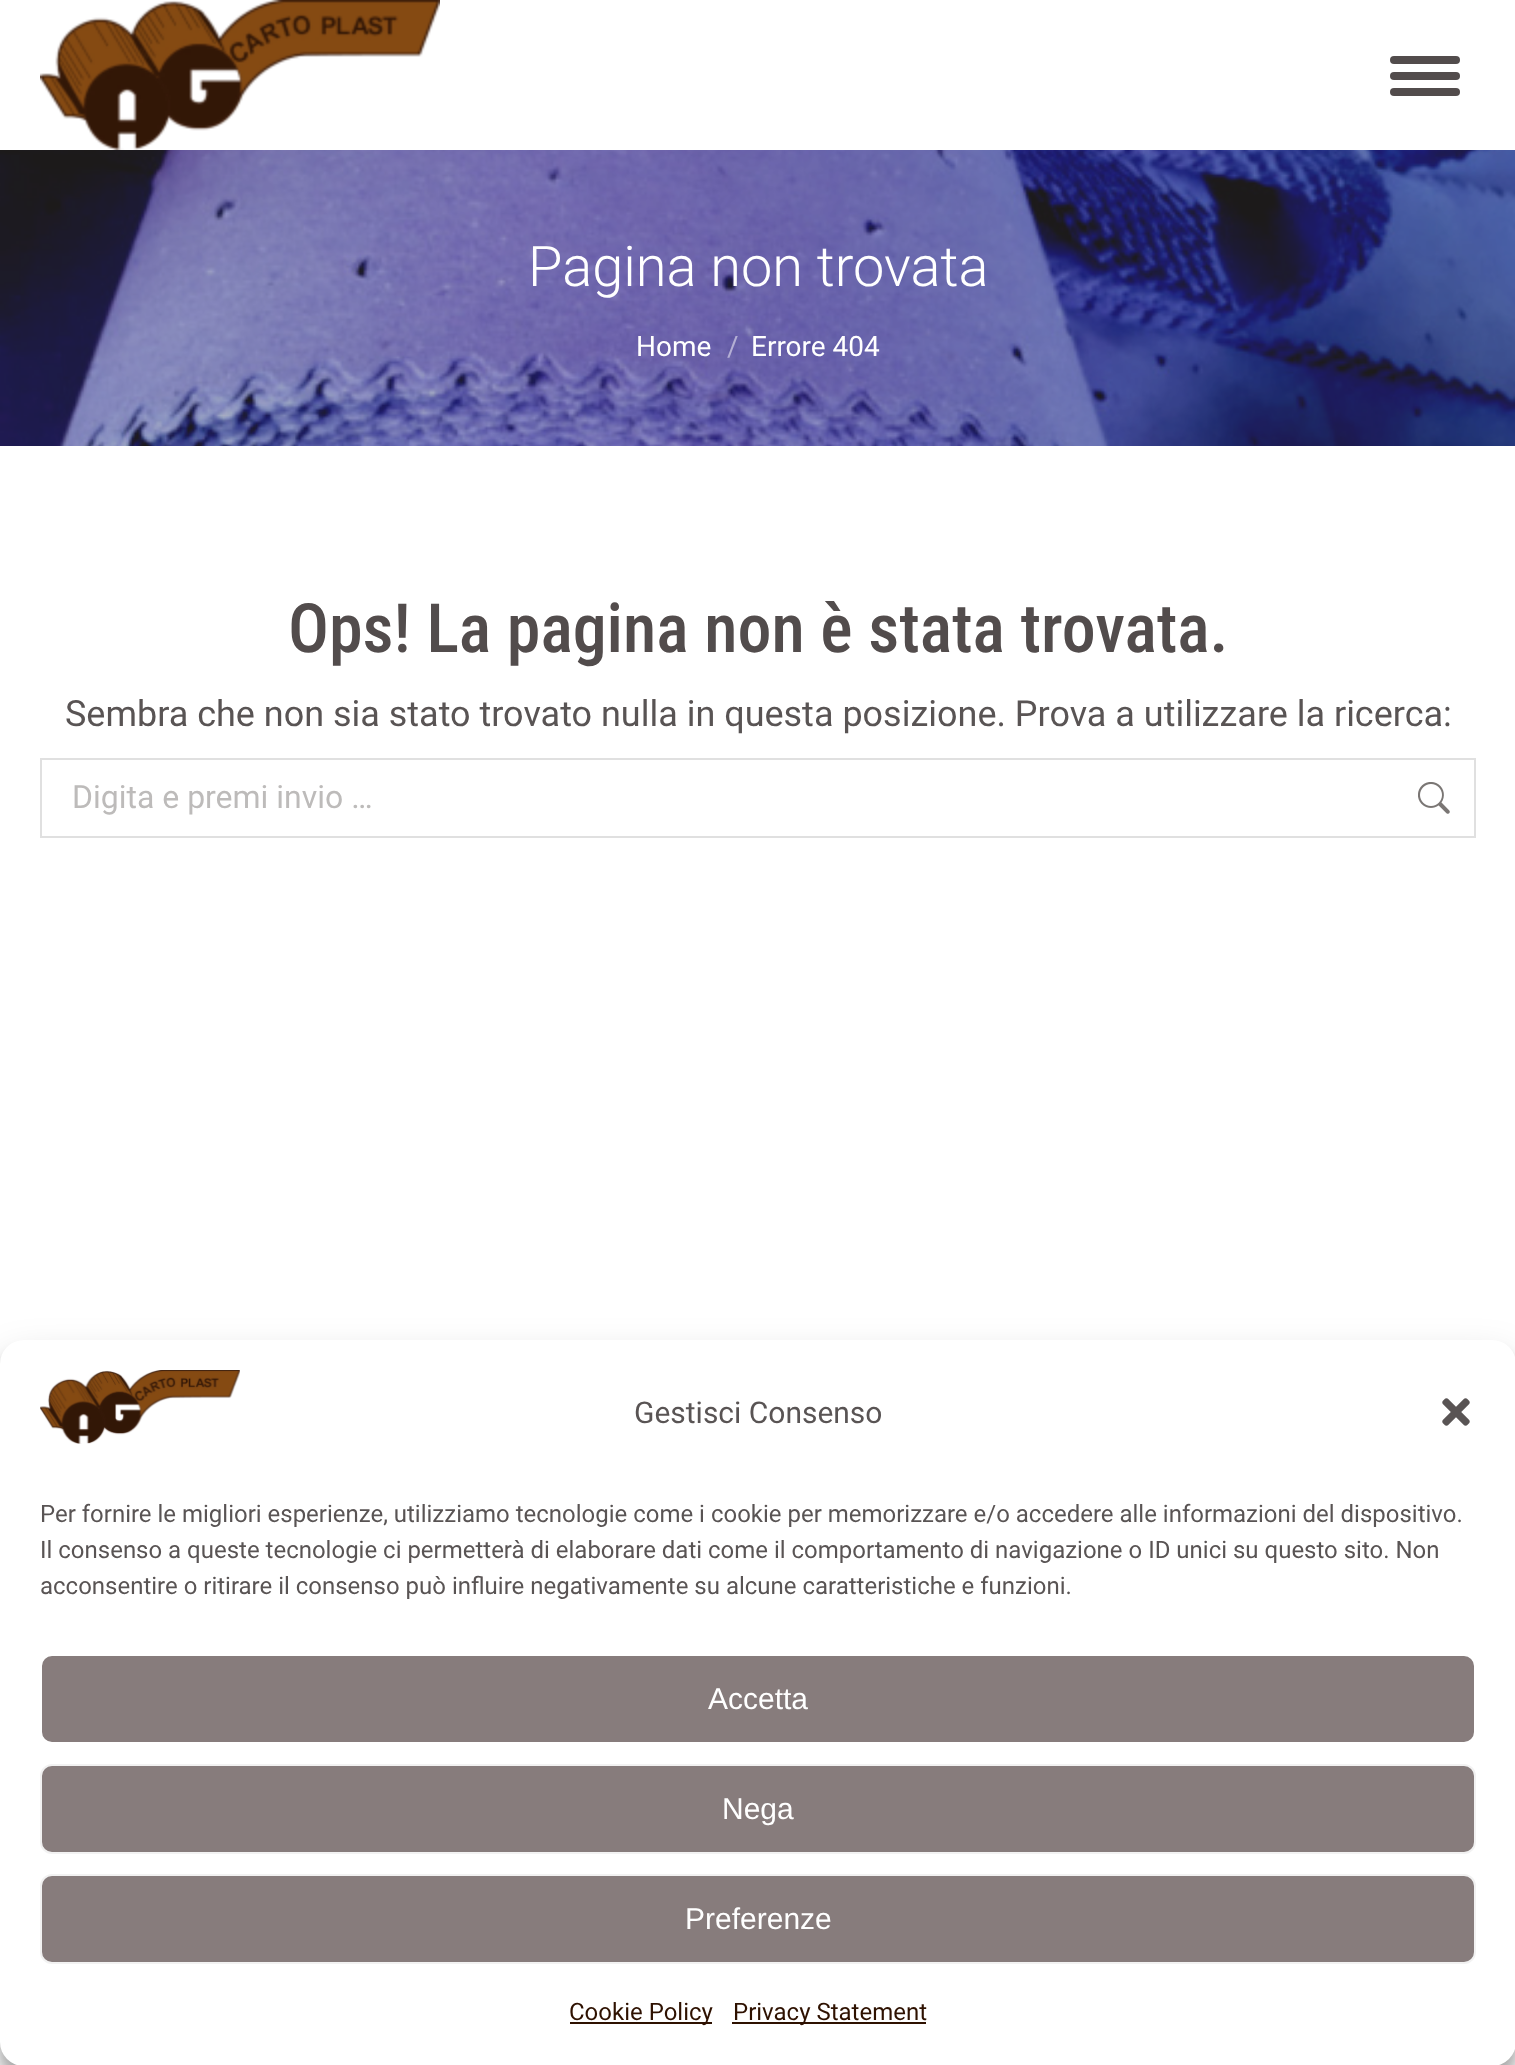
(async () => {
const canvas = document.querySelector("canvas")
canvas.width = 1515
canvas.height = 2065
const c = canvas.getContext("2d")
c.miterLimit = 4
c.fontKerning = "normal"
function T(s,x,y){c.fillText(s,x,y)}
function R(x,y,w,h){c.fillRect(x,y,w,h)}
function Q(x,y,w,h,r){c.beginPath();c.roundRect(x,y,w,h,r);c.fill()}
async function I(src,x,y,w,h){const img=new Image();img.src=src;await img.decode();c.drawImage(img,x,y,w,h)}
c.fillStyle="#fff"
R(0,0,1515,2065)
await I("1.png",40,0,400,150)
c.fillStyle="#524c4c"
Q(1390,56,70,8,4)
Q(1390,72,70,8,4)
Q(1390,88,70,8,4)
await I("2.png",0,150,1515,296)
c.font="300 56px Roboto"
c.fillStyle="#fff"
T("Pagina non trovata",528,286)
c.font="28px Roboto"
T("Home",636,356)
c.fillStyle="#b4afd4"
T("/",727,356)
c.fillStyle="#fff"
T("Errore 404",751,356)
c.font="500 68px Roboto Condensed"
c.fillStyle="#524c4c"
T("Ops! La pagina non è stata trovata.",288,652)
c.font="36px Roboto"
c.fillStyle="#595454"
T("Sembra che non sia stato trovato nulla in questa posizione. Prova a utilizzare la ricerca:",65,726)
c.strokeStyle="#e0e0e0"
c.lineWidth=2
c.strokeRect(41,759,1434,78)
c.font="32px Roboto"
c.fillStyle="#bdbbba"
T("Digita e premi invio …",72,808)
await I("3.png",1418,782,32,32)
c.fillStyle="#0000003b"
c.filter="blur(6px)"
c.beginPath()
c.roundRect(0,1352,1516,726,24)
c.fill()
c.filter="none"
c.fillStyle="#00000030"
c.filter="blur(20px)"
c.beginPath()
c.roundRect(0,1360,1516,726,24)
c.fill()
c.filter="none"
c.fillStyle="#fff"
Q(0,1340,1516,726,24)
await I("4.png",40,1370,200,74)
c.font="30px Roboto"
c.fillStyle="#595454"
T("Gestisci Consenso",634,1423)
await I("5.png",1442,1398,28,28)
c.font="24px Roboto"
T("Per fornire le migliori esperienze, utilizziamo tecnologie come i cookie per memorizzare e/o accedere alle informazioni del dispositivo.",40,1522)
T("Il consenso a queste tecnologie ci permetterà di elaborare dati come il comportamento di navigazione o ID unici su questo sito. Non",40,1558)
T("acconsentire o ritirare il consenso può influire negativamente su alcune caratteristiche e funzioni.",40,1594)
c.fillStyle="#877c7c"
c.beginPath()
c.roundRect(41,1655,1434,88,11)
c.fill()
c.strokeStyle="#fff"
c.stroke()
c.font="30px Liberation Sans"
c.fillStyle="#fff"
T("Accetta",708,1709)
c.fillStyle="#877c7c"
c.beginPath()
c.roundRect(41,1765,1434,88,11)
c.fill()
c.strokeStyle="#f2f2f2"
c.stroke()
c.fillStyle="#fff"
T("Nega",722,1819)
c.fillStyle="#877c7c"
c.beginPath()
c.roundRect(41,1875,1434,88,11)
c.fill()
c.stroke()
c.fillStyle="#fff"
T("Preferenze",685,1929)
c.fillStyle="#2e1100"
R(570,2022,142,2)
c.font="24px Roboto"
T("Cookie Policy",569,2020)
R(732,2022,194,2)
T("Privacy Statement",733,2020)
})()
